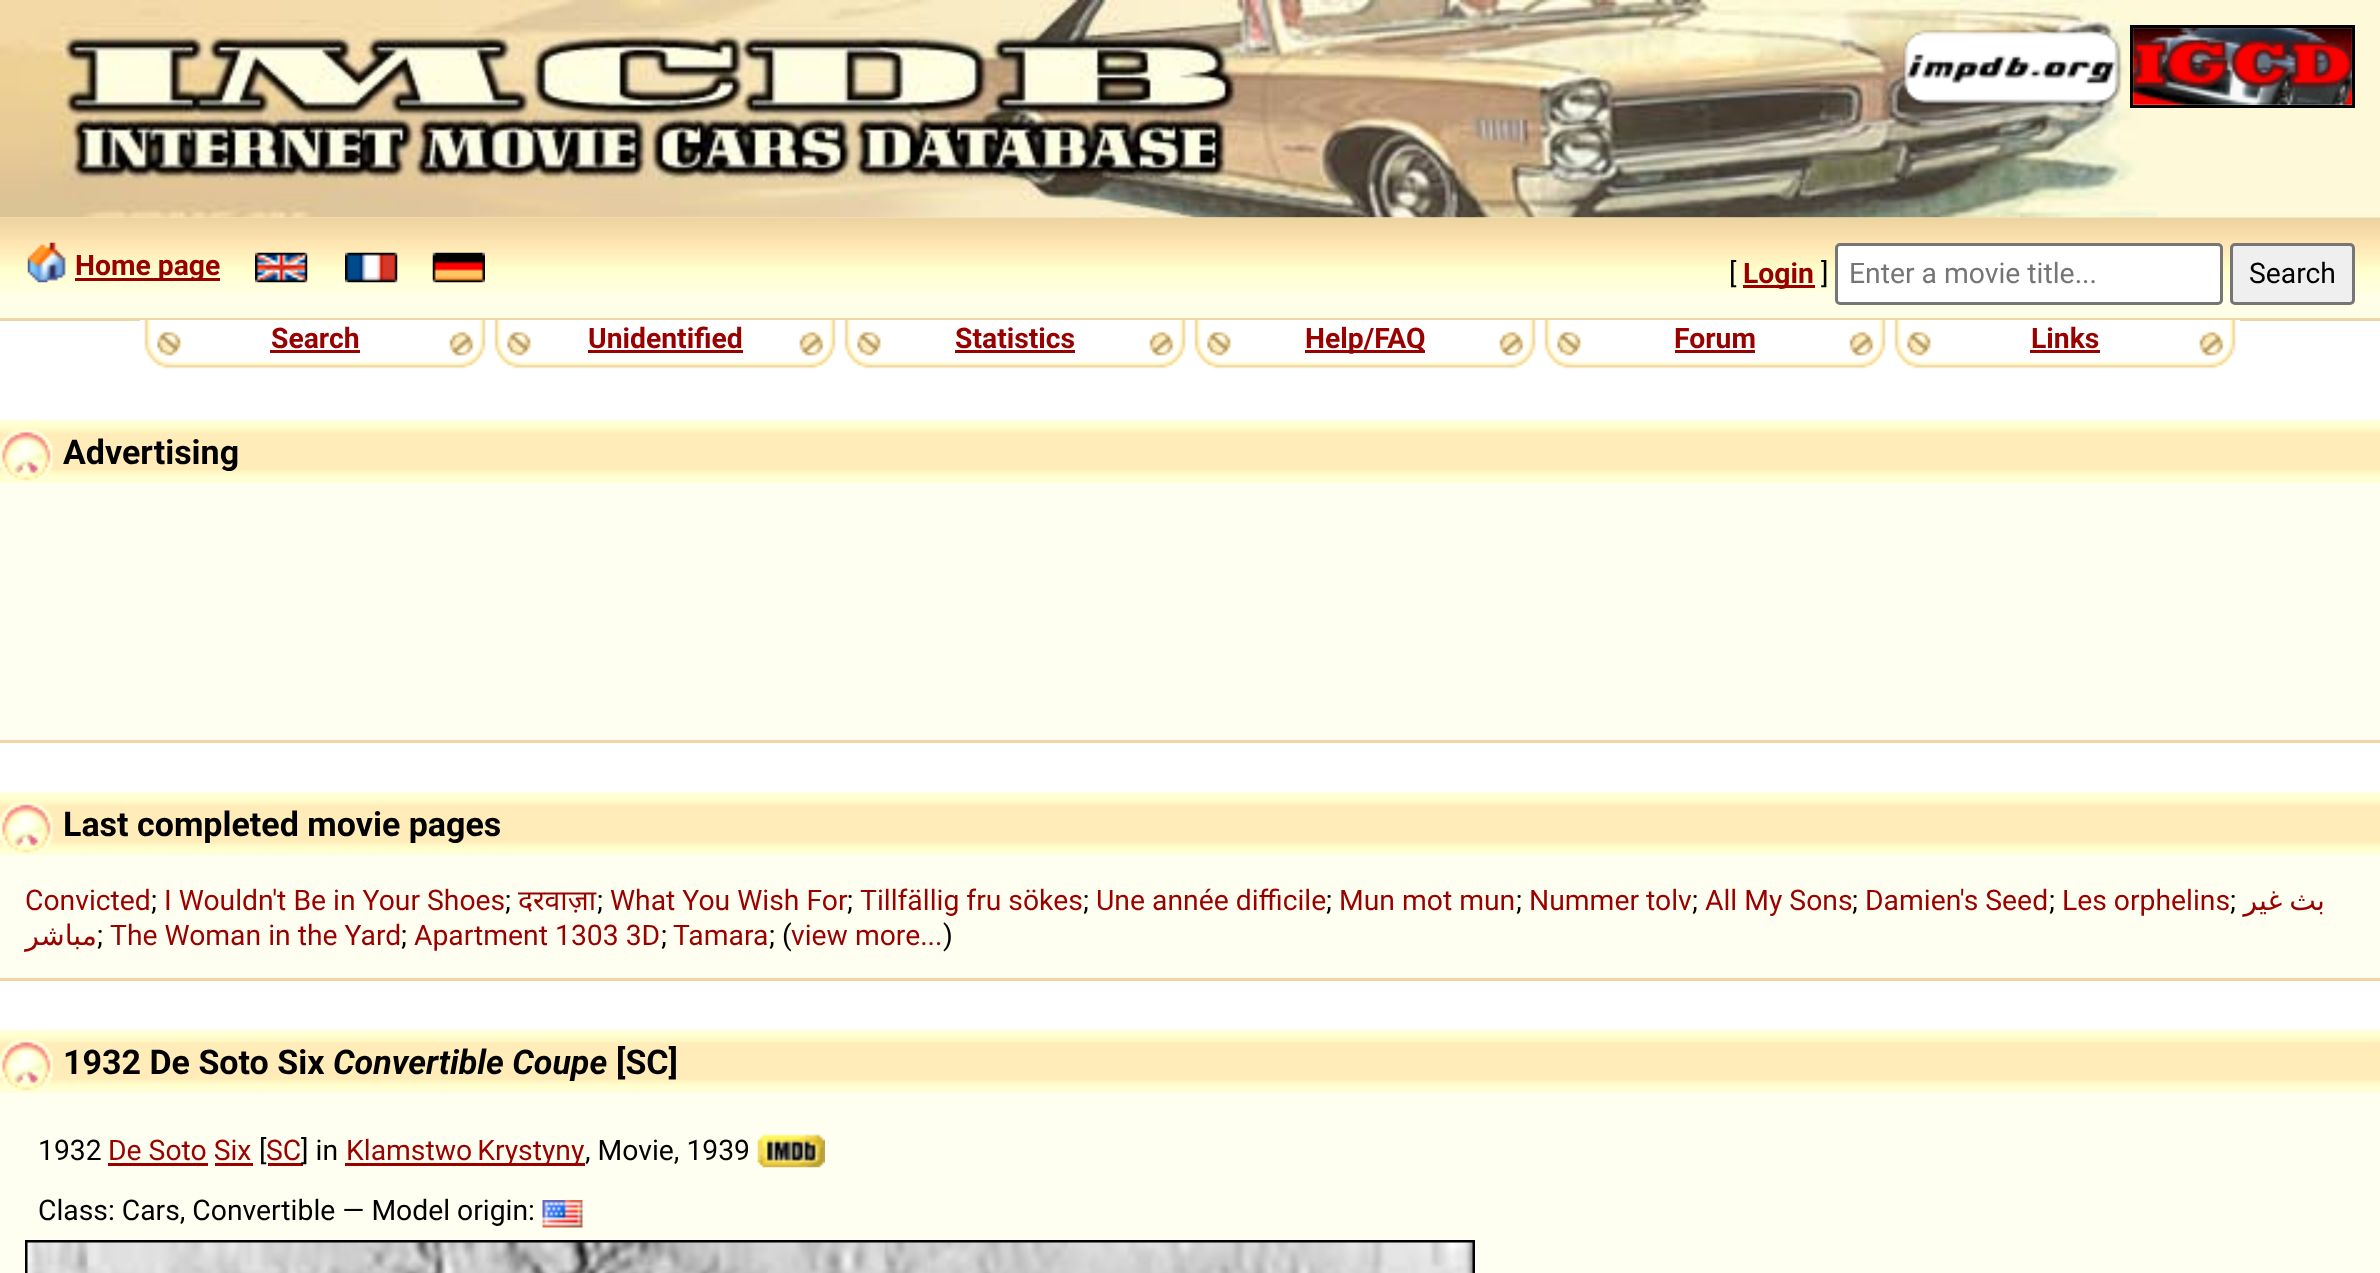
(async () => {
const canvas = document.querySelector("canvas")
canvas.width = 2380
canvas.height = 1273
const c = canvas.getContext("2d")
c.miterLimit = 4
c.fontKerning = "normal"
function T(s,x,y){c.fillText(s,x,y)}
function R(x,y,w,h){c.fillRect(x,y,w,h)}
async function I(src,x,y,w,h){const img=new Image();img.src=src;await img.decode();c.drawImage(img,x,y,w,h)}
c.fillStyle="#fff"
R(0,0,2380,1273)
c.fillStyle="#fef9d9"
R(0,0,2380,218)
await I("1.png",0,0,2158,218)
await I("3.png",2133,28,219,77)
c.strokeStyle="#000"
c.lineWidth=3
c.strokeRect(2131.5,26.5,222,80)
await I("2.png",1903,30,219,77)
c.fillStyle="#ffffe7"
R(0,294,2380,24)
await I("4.png",0,217,2380,77)
c.fillStyle="#efd6a3"
R(0,318,2380,3)
await I("5.png",27,242,39,41)
c.fillStyle="#900"
R(75,278,145,3)
c.font="bold 28.3px Roboto"
T("Home page",75,275)
await I("6.png",255,252,53,31)
await I("7.png",345,252,53,31)
await I("8.png",432,252,53,31)
c.font="28.3px Roboto"
c.fillStyle="#000"
T("[",1729,283)
c.fillStyle="#900"
R(1743,285,72,3)
c.font="bold 28.3px Roboto"
T("Login",1743,283)
c.font="28.3px Roboto"
c.fillStyle="#000"
T("]",1821,283)
c.fillStyle="#fff"
c.beginPath()
c.roundRect(1836.5,244.5,385,59,3.5)
c.fill()
c.strokeStyle="#767676"
c.stroke()
c.fillStyle="#757575"
T("Enter a movie title...",1849,283)
c.fillStyle="#efefef"
c.beginPath()
c.roundRect(2231.5,244.5,122,59,3.5)
c.fill()
c.stroke()
c.fillStyle="#000"
T("Search",2249,283)
await I("9.png",140,320,350,49)
c.font="bold 28.3px Roboto"
c.fillStyle="#900"
T("Search",271,348)
R(270,350,90,3)
await I("10.png",490,320,350,49)
T("Unidentified",588,348)
R(588,350,155,3)
await I("11.png",840,320,350,49)
T("Statistics",955,348)
R(955,350,120,3)
await I("9.png",1190,320,350,49)
R(1305,350,120,3)
T("Help/FAQ",1305,348)
await I("12.png",1540,320,350,49)
T("Forum",1674,348)
R(1675,350,80,3)
await I("9.png",1890,320,350,49)
T("Links",2031,348)
R(2030,350,70,3)
c.fillStyle="#fffff1"
R(0,483,2380,257)
c.fillStyle="#efd6a3"
R(0,740,2380,3)
c.fillStyle="#ffffd7"
R(0,420,2380,63)
await I("13.png",0,424,2380,54)
await I("14.png",0,429,54,52)
c.font="bold 34px Roboto"
c.fillStyle="#000"
T("Advertising",63,464)
c.fillStyle="#fffff1"
R(0,855,2380,123)
c.fillStyle="#efd6a3"
R(0,978,2380,3)
c.fillStyle="#ffffd7"
R(0,851,2380,4)
await I("15.png",0,792,2380,59)
await I("16.png",0,802,54,52)
c.fillStyle="#000"
T("Last completed movie pages",63,836)
c.font="28.3px Roboto"
c.fillStyle="#900"
T("Convicted",25,910)
c.fillStyle="#000"
T(";",151,910)
c.fillStyle="#900"
T("I Wouldn't Be in Your Shoes",164,910)
c.fillStyle="#000"
T(";",505,910)
c.font="28.3px Noto Sans"
c.fillStyle="#900"
T("दरवाज़ा",518,910)
c.font="28.3px Roboto"
c.fillStyle="#000"
T(";",597,910)
c.fillStyle="#900"
T("What You Wish For",610,910)
c.fillStyle="#000"
T(";",847,910)
c.fillStyle="#900"
T("Tillfällig fru sökes",860,910)
c.fillStyle="#000"
T(";",1083,910)
c.fillStyle="#900"
T("Une année difficile",1096,910)
c.fillStyle="#000"
T(";",1326,910)
c.fillStyle="#900"
T("Mun mot mun",1339,910)
c.fillStyle="#000"
T(";",1516,910)
c.fillStyle="#900"
T("Nummer tolv",1529,910)
c.fillStyle="#000"
T(";",1692,910)
c.fillStyle="#900"
T("All My Sons",1705,910)
c.fillStyle="#000"
T(";",1852,910)
c.fillStyle="#900"
T("Damien's Seed",1865,910)
c.fillStyle="#000"
T(";",2049,910)
c.fillStyle="#900"
T("Les orphelins",2062,910)
c.fillStyle="#000"
T(";",2230,910)
c.wordSpacing="-2px"
c.direction="rtl"
c.font="28.3px DejaVu Sans"
c.fillStyle="#900"
T("بث غير",2325,910)
c.wordSpacing="0px"
T("مباشر",97,945)
c.direction="ltr"
c.font="28.3px Roboto"
c.fillStyle="#000"
T(";",97,945)
c.fillStyle="#900"
T("The Woman in the Yard",110,945)
c.fillStyle="#000"
T(";",401,945)
c.fillStyle="#900"
T("Apartment 1303 3D",414,945)
c.fillStyle="#000"
T(";",661,945)
c.fillStyle="#900"
T("Tamara",673,945)
c.fillStyle="#000"
T("; (",769,945)
c.fillStyle="#900"
T("view more...",791,945)
c.fillStyle="#000"
T(")",943,945)
c.fillStyle="#fffff1"
R(0,1093,2380,180)
c.fillStyle="#ffffd7"
R(0,1030,2380,63)
await I("13.png",0,1034,2380,54)
await I("14.png",0,1039,54,52)
c.font="bold 34px Roboto"
c.fillStyle="#000"
T("1932 De Soto Six",63,1074)
c.font="italic bold 34px Roboto"
T("Convertible Coupe",333,1074)
c.font="bold 34px Roboto"
T("[SC]",616,1074)
c.font="28.3px Roboto"
T("1932",38,1160)
c.fillStyle="#900"
T("De Soto Six",108,1160)
R(108,1163,100,3)
c.fillStyle="#000"
T("[",259,1160)
c.fillStyle="#900"
T("SC",266,1160)
R(268,1163,35,3)
c.fillStyle="#000"
T("] in",301,1160)
c.fillStyle="#900"
R(345,1163,240,3)
c.wordSpacing="-2px"
T("Klamstwo Krystyny",346,1160)
c.wordSpacing="0px"
c.fillStyle="#000"
T(", Movie, 1939",585,1160)
await I("17.png",757,1134,68,34)
c.fillStyle="#900"
R(215,1163,38,3)
c.fillStyle="#000"
T("Class: Cars, Convertible — Model origin:",38,1220)
await I("18.png",542,1200,41,28)
c.strokeStyle="#000"
c.strokeRect(26.5,1241.5,1447,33)
await I("19.png",27,1242,1446,31)
})()
